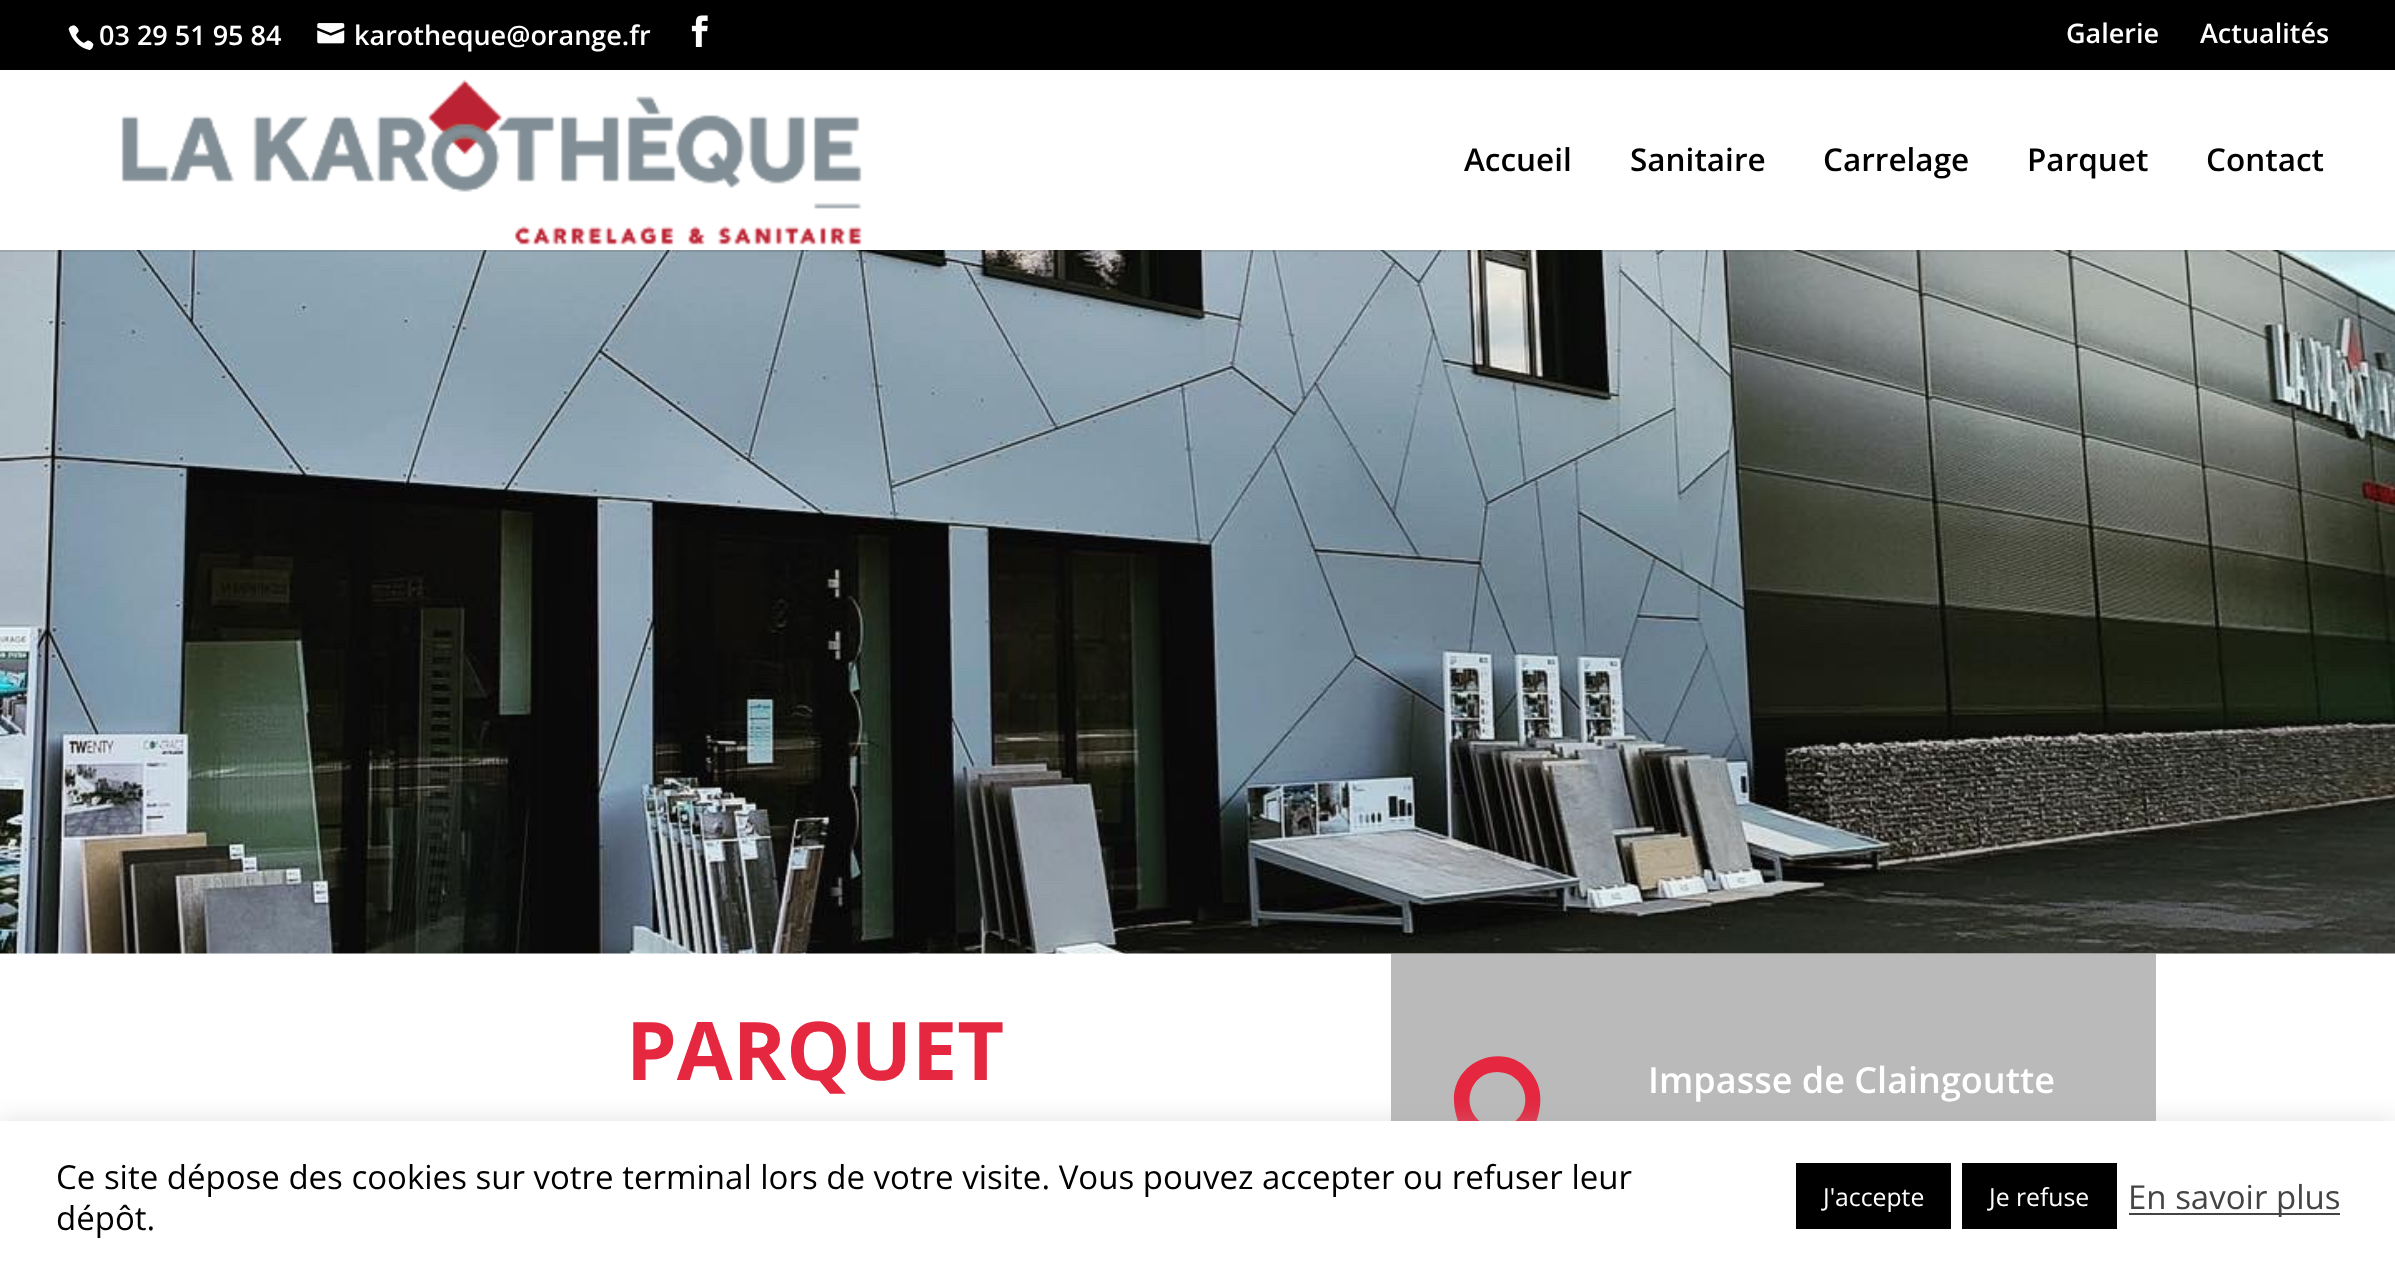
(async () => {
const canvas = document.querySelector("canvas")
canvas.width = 2395
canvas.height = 1271
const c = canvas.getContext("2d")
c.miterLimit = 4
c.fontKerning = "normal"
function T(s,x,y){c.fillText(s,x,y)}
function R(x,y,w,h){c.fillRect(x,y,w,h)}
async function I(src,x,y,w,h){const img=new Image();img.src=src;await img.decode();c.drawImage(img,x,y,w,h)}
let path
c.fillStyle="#fff"
R(0,0,2395,1271)
c.fillStyle="#000"
R(0,0,2395,70)
await I("1.png",68,25,26,26)
c.font="600 27px Open Sans"
c.fillStyle="#fff"
T("03 29 51 95 84",99,45)
await I("2.png",317,23,28,21)
T("karotheque@orange.fr",354,45)
await I("3.png",691,15,17,32)
T("Galerie",2066,43)
T("Actualités",2200,43)
await I("5.png",0,250,2395,704)
c.fillStyle="#0000001a"
R(0,250,2395,2)
await I("4.png",121,79,741,166)
c.font="600 31.5px Open Sans"
c.fillStyle="#000"
T("Accueil",1464,171)
T("Sanitaire",1630,171)
T("Carrelage",1823,171)
T("Parquet",2027,171)
T("Contact",2206,171)
c.font="bold 81px Open Sans"
c.fillStyle="#e52740"
T("PARQUET",626,1080)
c.fillStyle="#bababa"
R(1391,954,765,167)
c.fillStyle="#e52740"
path = new Path2D("M1495 1178l1 1l2 1c3-1 13-15 14-16c19-25 43-65 17-94c-26-29-77-9-75 31c1 28 23 56 41 77zm2-106c28 0 39 35 16 51c-5 3-10 5-16 5c-5 0-11-2-15-5c-23-16-12-51 15-51z")
c.fill(path)
c.font="600 36px Open Sans"
c.fillStyle="#fff"
T("Impasse de Claingoutte",1648,1093)
c.fillStyle="#acabab4d"
c.filter="blur(11px)"
c.beginPath()
c.rect(0,1118,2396,151)
c.fill()
c.filter="none"
c.fillStyle="#fff"
R(0,1121,2395,150)
c.font="33px Open Sans"
c.fillStyle="#000"
T("Ce site dépose des cookies sur votre terminal lors de votre visite. Vous pouvez accepter ou refuser leur",56,1189)
T("dépôt.",56,1230)
R(1796,1163,155,66)
c.font="24.75px Open Sans"
c.fillStyle="#fff"
T("J'accepte",1823,1206)
c.fillStyle="#000"
R(1962,1163,155,66)
c.fillStyle="#fff"
T("Je refuse",1989,1206)
c.fillStyle="#444"
R(2129,1213,211,2)
c.font="33px Open Sans"
T("En savoir plus",2128,1209)
})()
